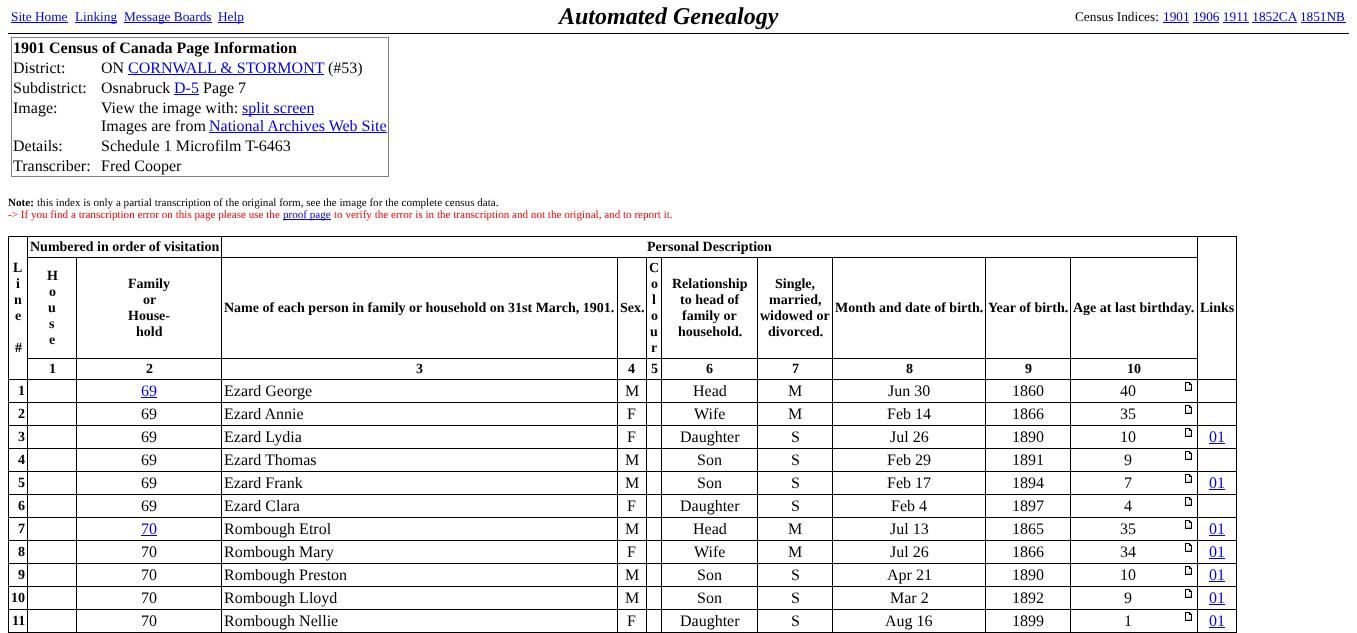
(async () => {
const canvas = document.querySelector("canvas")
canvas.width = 1357
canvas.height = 633
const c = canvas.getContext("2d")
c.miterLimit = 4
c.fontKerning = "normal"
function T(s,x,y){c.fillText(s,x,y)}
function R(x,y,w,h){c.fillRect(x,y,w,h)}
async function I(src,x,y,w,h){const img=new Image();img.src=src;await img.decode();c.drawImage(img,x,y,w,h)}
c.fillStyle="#fff"
R(0,0,1357,633)
c.fillStyle="#000"
R(8,33,1341,1)
c.font="13.3px Liberation Serif"
c.fillStyle="#00e"
T("Site Home",11,21)
R(11,22,57,1)
R(75,22,42,1)
T("Linking",75,21)
R(124,22,88,1)
T("Message Boards",124,21)
R(218,22,26,1)
T("Help",218,21)
c.font="italic bold 24px Liberation Serif"
c.fillStyle="#000"
T("Automated Genealogy",559,24)
c.font="13.3px Liberation Serif"
T("Census Indices:",1075,21)
c.fillStyle="#00e"
T("1901 1906 1911 1852CA 1851NB",1163,21)
R(1163,22,26,1)
R(1193,22,26,1)
R(1223,22,26,1)
R(1252,22,45,1)
R(1301,22,45,1)
c.fillStyle="#808080"
R(11,37,378,1)
R(388,37,1,140)
R(11,176,378,1)
R(11,37,1,140)
c.font="bold 16px Liberation Serif"
c.fillStyle="#000"
T("1901 Census of Canada Page Information",13,53)
c.font="16px Liberation Serif"
T("District:",13,73)
T("ON",101,73)
c.fillStyle="#00e"
T("CORNWALL & STORMONT",128,73)
R(128,74,196,1)
c.fillStyle="#000"
T("(#53)",328,73)
T("Subdistrict:",13,93)
T("Osnabruck",101,93)
c.fillStyle="#00e"
T("D-5",174,93)
R(174,94,25,1)
c.fillStyle="#000"
T("Page 7",203,93)
T("Image:",13,113)
T("View the image with:",101,113)
c.fillStyle="#00e"
R(242,114,72,1)
T("split screen",242,113)
c.fillStyle="#000"
T("Images are from",101,131)
c.fillStyle="#00e"
T("National Archives Web Site",209,131)
R(209,132,178,1)
c.fillStyle="#000"
T("Details:",13,151)
T("Schedule 1 Microfilm T-6463",101,151)
T("Transcriber:",13,171)
T("Fred Cooper",101,171)
c.font="bold 11.1px Liberation Serif"
T("Note:",8,206)
c.font="11.1px Liberation Serif"
T("this index is only a partial transcription of the original form, see the image for the complete census data.",37,206)
c.fillStyle="#f00"
T("-> If you find a transcription error on this page please use the",8,218)
c.fillStyle="#00e"
R(283,219,48,1)
T("proof page",283,218)
c.fillStyle="#f00"
T("to verify the error is in the transcription and not the original, and to report it.",334,218)
c.fillStyle="#000"
R(8,236,1229,1)
R(1236,236,1,397)
R(8,236,1,397)
c.font="bold 14px Liberation Serif"
T("Numbered in order of visitation",30,251)
R(1070,257,128,1)
R(1070,358,128,1)
R(1197,379,40,1)
R(1197,402,40,1)
R(1197,425,40,1)
R(1197,448,40,1)
R(1197,471,40,1)
R(1197,494,40,1)
R(1197,517,40,1)
R(1197,540,40,1)
R(1197,563,40,1)
R(1197,586,40,1)
R(1197,609,40,1)
R(8,632,1229,1)
R(1197,609,1,24)
R(1070,609,128,1)
R(1197,586,1,24)
R(1070,586,128,1)
R(1197,563,1,24)
R(1070,563,128,1)
R(1197,540,1,24)
R(1070,540,128,1)
R(1197,517,1,24)
R(1070,517,128,1)
R(1197,494,1,24)
R(1070,494,128,1)
R(1197,471,1,24)
R(1070,471,128,1)
R(1197,448,1,24)
R(1070,448,128,1)
R(1197,425,1,24)
R(1070,425,128,1)
R(1197,402,1,24)
R(1070,402,128,1)
R(1197,379,1,24)
R(1070,379,128,1)
R(1070,609,1,24)
R(985,609,86,1)
R(1070,586,1,24)
R(985,586,86,1)
R(1070,563,1,24)
R(985,563,86,1)
R(1070,540,1,24)
R(985,540,86,1)
R(1070,517,1,24)
R(985,517,86,1)
R(1070,494,1,24)
R(985,494,86,1)
R(1070,471,1,24)
R(985,471,86,1)
R(1070,448,1,24)
R(985,448,86,1)
R(1070,425,1,24)
R(985,425,86,1)
R(1070,402,1,24)
R(985,402,86,1)
R(1070,379,1,24)
R(985,379,86,1)
R(1070,358,1,22)
R(985,358,86,1)
R(1070,257,1,102)
R(985,257,86,1)
R(985,609,1,24)
R(832,609,154,1)
R(985,586,1,24)
R(832,586,154,1)
R(985,563,1,24)
R(832,563,154,1)
R(985,540,1,24)
R(832,540,154,1)
R(985,517,1,24)
R(832,517,154,1)
R(985,494,1,24)
R(832,494,154,1)
R(985,471,1,24)
R(832,471,154,1)
R(985,448,1,24)
R(832,448,154,1)
R(985,425,1,24)
R(832,425,154,1)
R(985,402,1,24)
R(832,402,154,1)
R(985,379,1,24)
R(832,379,154,1)
R(985,358,1,22)
R(832,358,154,1)
R(985,257,1,102)
R(832,257,154,1)
R(832,609,1,24)
R(757,609,76,1)
R(832,586,1,24)
R(757,586,76,1)
R(832,563,1,24)
R(757,563,76,1)
R(832,540,1,24)
R(757,540,76,1)
R(832,517,1,24)
R(757,517,76,1)
R(832,494,1,24)
R(757,494,76,1)
R(832,471,1,24)
R(757,471,76,1)
R(832,448,1,24)
R(757,448,76,1)
R(832,425,1,24)
R(757,425,76,1)
R(832,402,1,24)
R(757,402,76,1)
R(832,379,1,24)
R(757,379,76,1)
R(832,358,1,22)
R(757,358,76,1)
R(832,257,1,102)
R(757,257,76,1)
R(757,609,1,24)
R(661,609,97,1)
R(757,586,1,24)
R(661,586,97,1)
R(757,563,1,24)
R(661,563,97,1)
R(757,540,1,24)
R(661,540,97,1)
R(757,517,1,24)
R(661,517,97,1)
R(757,494,1,24)
R(661,494,97,1)
R(757,471,1,24)
R(661,471,97,1)
R(757,448,1,24)
R(661,448,97,1)
R(757,425,1,24)
R(661,425,97,1)
R(757,402,1,24)
R(661,402,97,1)
R(757,379,1,24)
R(661,379,97,1)
R(757,358,1,22)
R(661,358,97,1)
R(757,257,1,102)
R(661,257,97,1)
R(661,609,1,24)
R(646,609,16,1)
R(661,586,1,24)
R(646,586,16,1)
R(661,563,1,24)
R(646,563,16,1)
R(661,540,1,24)
R(646,540,16,1)
R(661,517,1,24)
R(646,517,16,1)
R(661,494,1,24)
R(646,494,16,1)
R(661,471,1,24)
R(646,471,16,1)
R(661,448,1,24)
R(646,448,16,1)
R(661,425,1,24)
R(646,425,16,1)
R(661,402,1,24)
R(646,402,16,1)
R(661,379,1,24)
R(646,379,16,1)
R(661,358,1,22)
R(646,358,16,1)
R(661,257,1,102)
R(646,257,16,1)
R(646,609,1,24)
R(617,609,30,1)
R(646,586,1,24)
R(617,586,30,1)
R(646,563,1,24)
R(617,563,30,1)
R(646,540,1,24)
R(617,540,30,1)
R(646,517,1,24)
R(617,517,30,1)
R(646,494,1,24)
R(617,494,30,1)
R(646,471,1,24)
R(617,471,30,1)
R(646,448,1,24)
R(617,448,30,1)
R(646,425,1,24)
R(617,425,30,1)
R(646,402,1,24)
R(617,402,30,1)
R(646,379,1,24)
R(617,379,30,1)
R(646,358,1,22)
R(617,358,30,1)
R(646,257,1,102)
R(617,257,30,1)
R(617,609,1,24)
R(221,609,397,1)
R(617,586,1,24)
R(221,586,397,1)
R(617,563,1,24)
R(221,563,397,1)
R(617,540,1,24)
R(221,540,397,1)
R(617,517,1,24)
R(221,517,397,1)
R(617,494,1,24)
R(221,494,397,1)
R(617,471,1,24)
R(221,471,397,1)
R(617,448,1,24)
R(221,448,397,1)
R(617,425,1,24)
R(221,425,397,1)
R(617,402,1,24)
R(221,402,397,1)
R(617,379,1,24)
R(221,379,397,1)
R(617,358,1,22)
R(221,358,397,1)
R(617,257,1,102)
R(221,257,397,1)
R(221,609,1,24)
R(76,609,146,1)
R(221,586,1,24)
R(76,586,146,1)
R(221,563,1,24)
R(76,563,146,1)
R(221,540,1,24)
R(76,540,146,1)
R(221,517,1,24)
R(76,517,146,1)
R(221,494,1,24)
R(76,494,146,1)
R(221,471,1,24)
R(76,471,146,1)
R(221,448,1,24)
R(76,448,146,1)
R(221,425,1,24)
R(76,425,146,1)
R(221,402,1,24)
R(76,402,146,1)
R(221,379,1,24)
R(76,379,146,1)
R(221,358,1,22)
R(76,358,146,1)
R(221,257,1,102)
R(76,257,146,1)
R(221,236,1,22)
T("Personal Description",647,251)
T("L",13,272)
T("i",16,288)
T("n",14,304)
T("e",15,320)
T("#",15,352)
R(1197,236,1,144)
T("Links",1200,312)
R(76,609,1,24)
R(27,609,50,1)
R(76,586,1,24)
R(27,586,50,1)
R(76,563,1,24)
R(27,563,50,1)
R(76,540,1,24)
R(27,540,50,1)
R(76,517,1,24)
R(27,517,50,1)
R(76,494,1,24)
R(27,494,50,1)
R(76,471,1,24)
R(27,471,50,1)
R(76,448,1,24)
R(27,448,50,1)
R(76,425,1,24)
R(27,425,50,1)
R(76,402,1,24)
R(27,402,50,1)
R(76,379,1,24)
R(27,379,50,1)
R(76,358,1,22)
R(27,358,50,1)
R(76,257,1,102)
R(27,257,50,1)
R(27,609,1,24)
R(8,609,20,1)
R(27,586,1,24)
R(8,586,20,1)
R(27,563,1,24)
R(8,563,20,1)
R(27,540,1,24)
R(8,540,20,1)
R(27,517,1,24)
R(8,517,20,1)
R(27,494,1,24)
R(8,494,20,1)
R(27,471,1,24)
R(8,471,20,1)
R(27,448,1,24)
R(8,448,20,1)
R(27,425,1,24)
R(8,425,20,1)
R(27,402,1,24)
R(8,402,20,1)
R(27,379,1,24)
R(8,379,20,1)
R(27,358,1,22)
R(27,236,1,123)
T("H",47,280)
T("o",49,296)
T("u",48,312)
T("s",49,328)
T("e",49,344)
T("Family",128,288)
T("or",143,304)
T("House-",128,320)
T("hold",136,336)
T("Name of each person in family or household on 31st March, 1901.",224,312)
T("Sex.",620,312)
T("C",649,272)
T("o",651,288)
T("l",652,304)
T("o",651,320)
T("u",650,336)
T("r",651,352)
T("Relationship",672,288)
T("to head of",680,304)
T("family or",682,320)
T("household.",678,336)
T("Single,",775,288)
T("married,",769,304)
T("widowed or",760,320)
T("divorced.",768,336)
T("Month and date of birth.",835,312)
T("Year of birth.",988,312)
T("Age at last birthday.",1073,312)
T("1",49,373)
T("2",146,373)
T("3",416,373)
T("4",628,373)
T("5",651,373)
T("6",706,373)
T("7",792,373)
T("8",906,373)
T("9",1025,373)
T("10",1127,373)
T("1",18,395)
c.font="16px Liberation Serif"
c.fillStyle="#00e"
T("69",141,396)
R(141,397,16,1)
c.fillStyle="#000"
T("Ezard George",224,396)
T("M",625,396)
T("Head",693,396)
T("M",788,396)
T("Jun 30",888,396)
T("1860",1012,396)
T("40",1120,396)
await I("1.png",1185,382,7,9)
c.font="bold 14px Liberation Serif"
T("2",18,418)
c.font="16px Liberation Serif"
T("69",141,419)
T("Ezard Annie",224,419)
T("F",627,419)
T("Wife",694,419)
T("M",788,419)
T("Feb 14",887,419)
T("1866",1012,419)
T("35",1120,419)
await I("1.png",1185,405,7,9)
c.font="bold 14px Liberation Serif"
T("3",18,441)
c.font="16px Liberation Serif"
T("69",141,442)
T("Ezard Lydia",224,442)
T("F",627,442)
T("Daughter",680,442)
T("S",791,442)
T("Jul 26",890,442)
T("1890",1012,442)
T("10",1120,442)
await I("1.png",1185,428,7,9)
c.fillStyle="#00e"
T("01",1209,442)
R(1209,443,16,1)
c.font="bold 14px Liberation Serif"
c.fillStyle="#000"
T("4",18,464)
c.font="16px Liberation Serif"
T("69",141,465)
T("Ezard Thomas",224,465)
T("M",625,465)
T("Son",697,465)
T("S",791,465)
T("Feb 29",887,465)
T("1891",1012,465)
T("9",1124,465)
await I("1.png",1185,451,7,9)
c.font="bold 14px Liberation Serif"
T("5",18,487)
c.font="16px Liberation Serif"
T("69",141,488)
T("Ezard Frank",224,488)
T("M",625,488)
T("Son",697,488)
T("S",791,488)
T("Feb 17",887,488)
T("1894",1012,488)
T("7",1124,488)
await I("1.png",1185,474,7,9)
c.fillStyle="#00e"
T("01",1209,488)
R(1209,489,16,1)
c.font="bold 14px Liberation Serif"
c.fillStyle="#000"
T("6",18,510)
c.font="16px Liberation Serif"
T("69",141,511)
T("Ezard Clara",224,511)
T("F",627,511)
T("Daughter",680,511)
T("S",791,511)
T("Feb 4",891,511)
T("1897",1012,511)
T("4",1124,511)
await I("1.png",1185,497,7,9)
c.font="bold 14px Liberation Serif"
T("7",18,533)
c.font="16px Liberation Serif"
c.fillStyle="#00e"
T("70",141,534)
R(141,535,16,1)
c.fillStyle="#000"
T("Rombough Etrol",224,534)
T("M",625,534)
T("Head",693,534)
T("M",788,534)
T("Jul 13",890,534)
T("1865",1012,534)
T("35",1120,534)
await I("1.png",1185,520,7,9)
c.fillStyle="#00e"
T("01",1209,534)
R(1209,535,16,1)
c.font="bold 14px Liberation Serif"
c.fillStyle="#000"
T("8",18,556)
c.font="16px Liberation Serif"
T("70",141,557)
T("Rombough Mary",224,557)
T("F",627,557)
T("Wife",694,557)
T("M",788,557)
T("Jul 26",890,557)
T("1866",1012,557)
T("34",1120,557)
await I("1.png",1185,543,7,9)
c.fillStyle="#00e"
T("01",1209,557)
R(1209,558,16,1)
c.font="bold 14px Liberation Serif"
c.fillStyle="#000"
T("9",18,579)
c.font="16px Liberation Serif"
T("70",141,580)
T("Rombough Preston",224,580)
T("M",625,580)
T("Son",697,580)
T("S",791,580)
T("Apr 21",887,580)
T("1890",1012,580)
T("10",1120,580)
await I("1.png",1185,566,7,9)
c.fillStyle="#00e"
T("01",1209,580)
R(1209,581,16,1)
c.font="bold 14px Liberation Serif"
c.fillStyle="#000"
T("10",11,602)
c.font="16px Liberation Serif"
T("70",141,603)
T("Rombough Lloyd",224,603)
T("M",625,603)
T("Son",697,603)
T("S",791,603)
T("Mar 2",890,603)
T("1892",1012,603)
T("9",1124,603)
await I("1.png",1185,589,7,9)
c.fillStyle="#00e"
T("01",1209,603)
R(1209,604,16,1)
c.font="bold 14px Liberation Serif"
c.fillStyle="#000"
T("11",12,625)
c.font="16px Liberation Serif"
T("70",141,626)
T("Rombough Nellie",224,626)
T("F",627,626)
T("Daughter",680,626)
T("S",791,626)
T("Aug 16",885,626)
T("1899",1012,626)
T("1",1124,626)
await I("1.png",1185,612,7,9)
c.fillStyle="#00e"
T("01",1209,626)
R(1209,627,16,1)
})()
